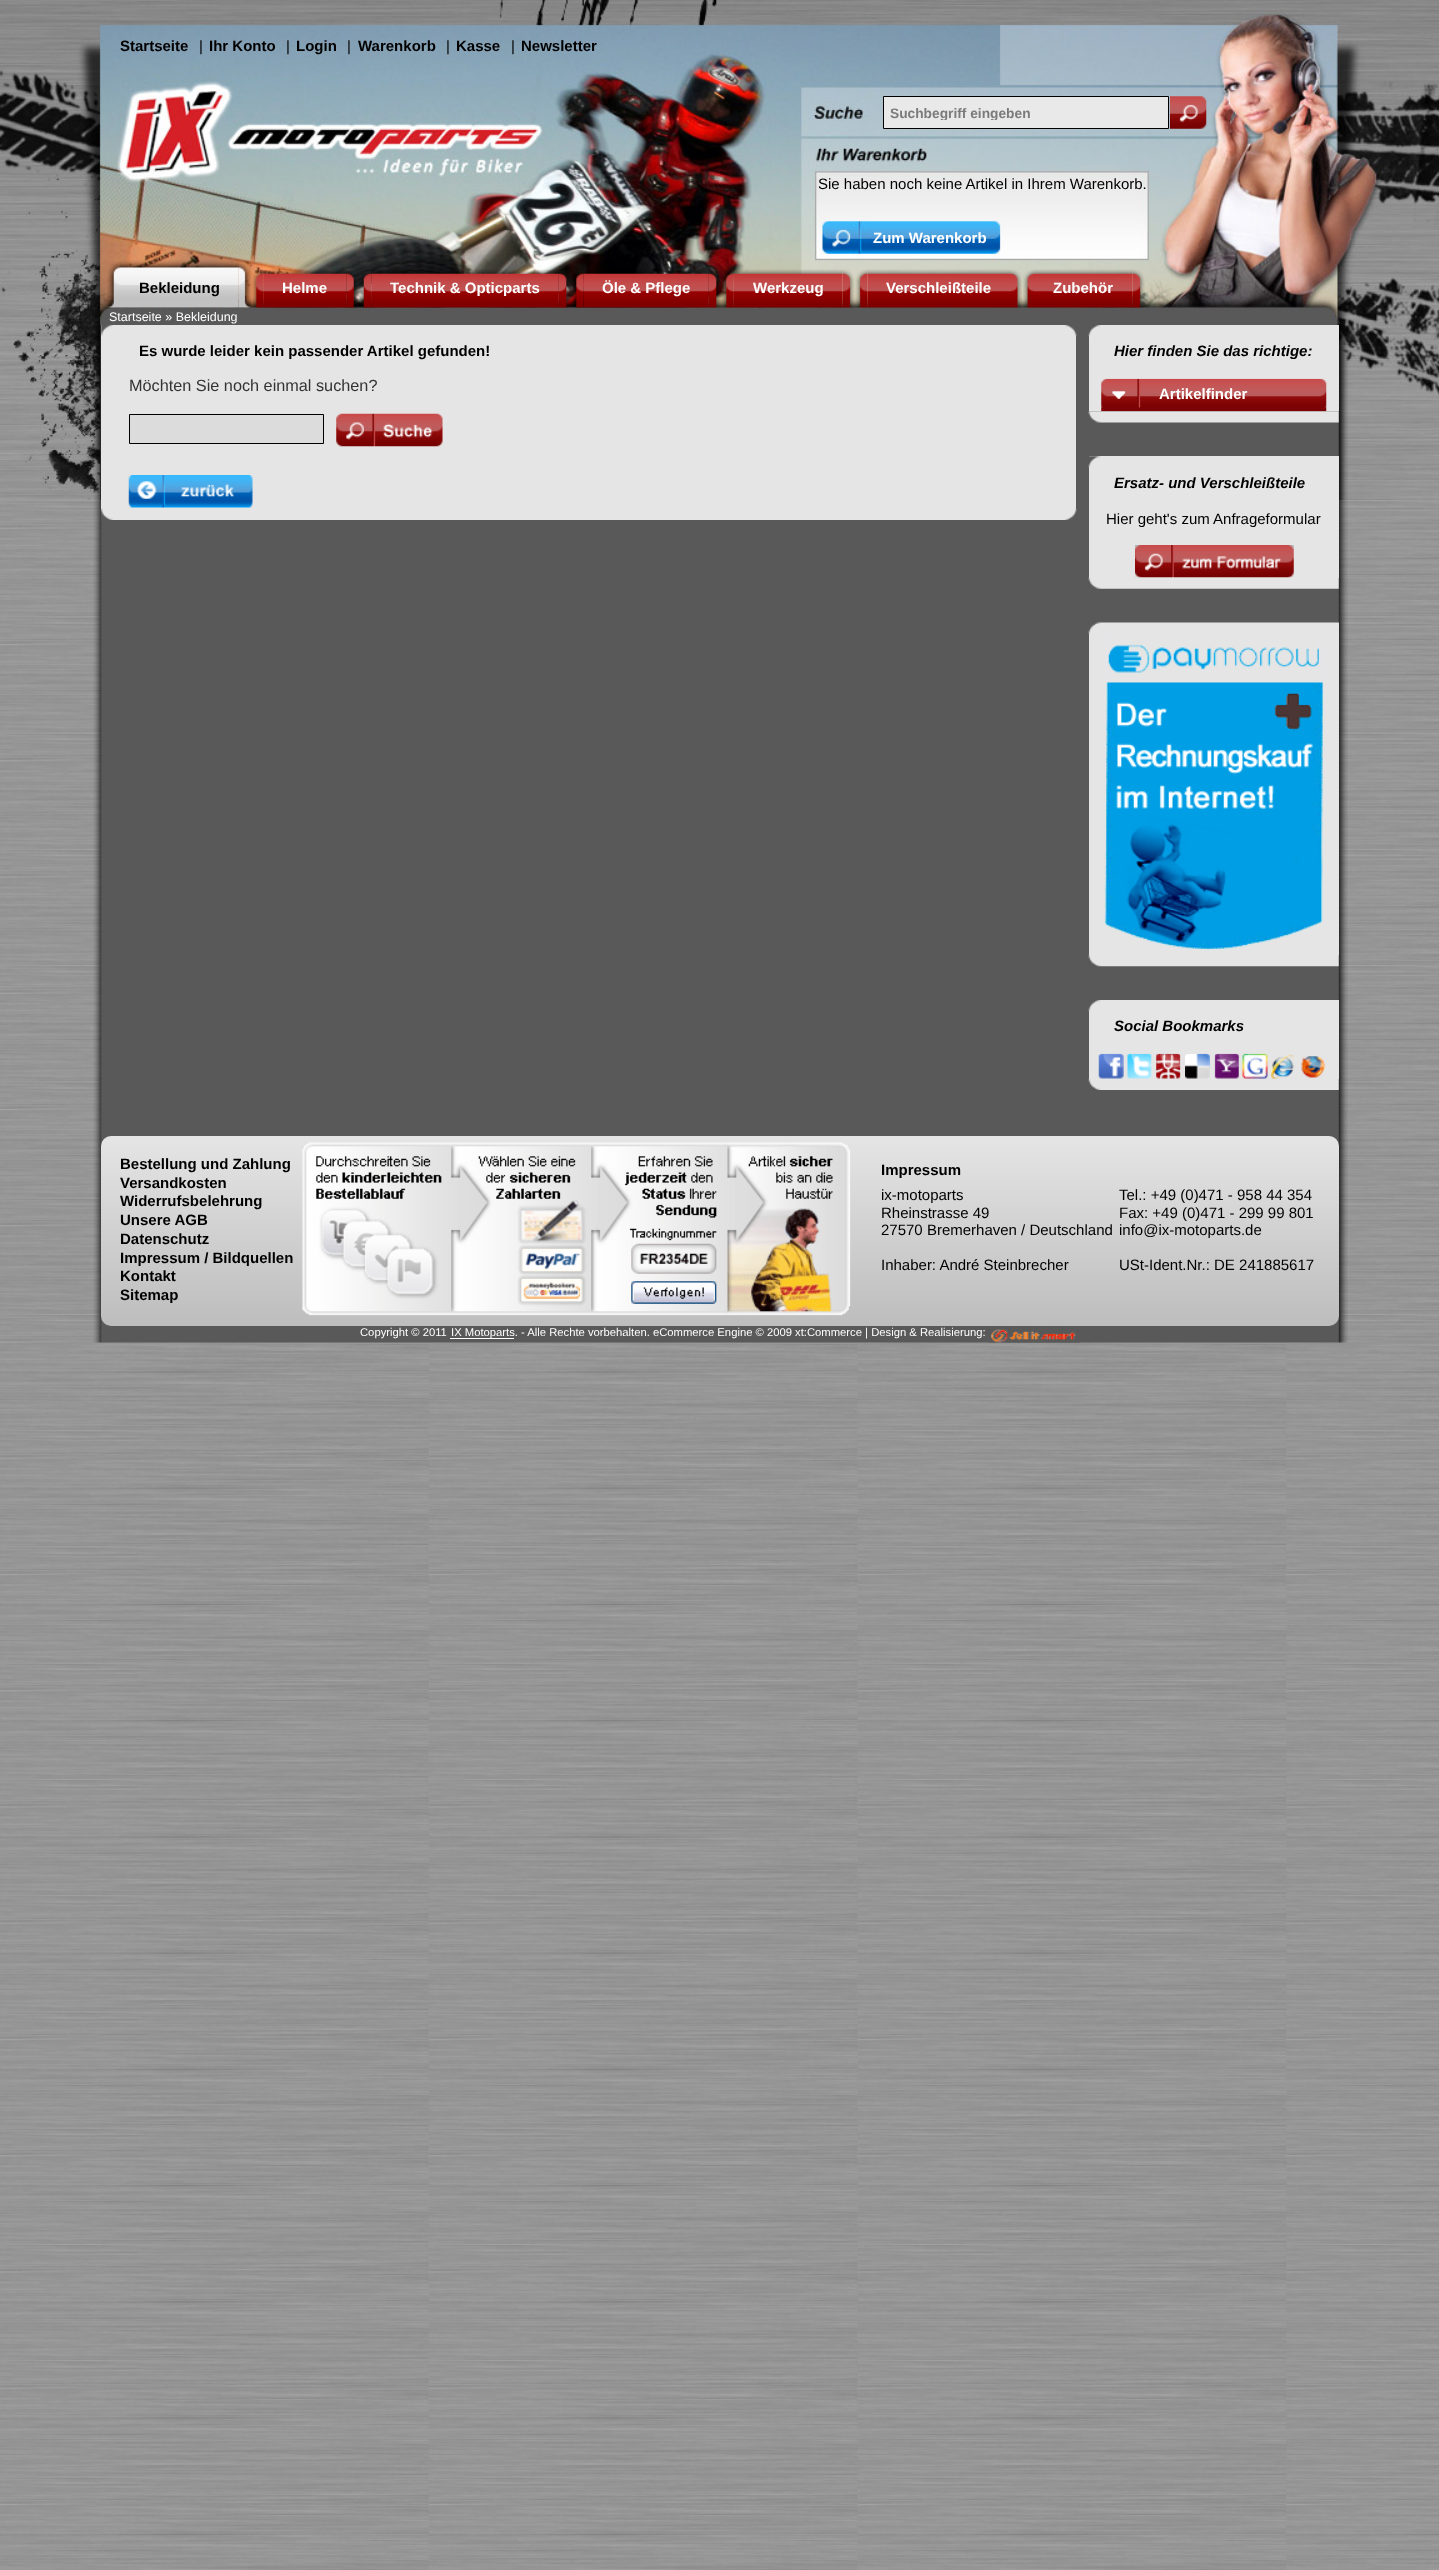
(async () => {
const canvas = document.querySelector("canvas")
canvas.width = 1439
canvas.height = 2570
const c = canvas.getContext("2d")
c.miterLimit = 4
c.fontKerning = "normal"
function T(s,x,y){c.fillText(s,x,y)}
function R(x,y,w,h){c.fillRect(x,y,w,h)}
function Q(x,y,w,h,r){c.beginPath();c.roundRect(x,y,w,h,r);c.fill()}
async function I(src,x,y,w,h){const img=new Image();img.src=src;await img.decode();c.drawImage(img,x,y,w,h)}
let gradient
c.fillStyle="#fff"
R(0,0,1439,2570)
await I("1.png",0,500,1439,2070)
await I("2.png",0,0,1439,500)
c.font="bold 15px Liberation Sans"
c.fillStyle="#000"
T("Startseite",120,51)
c.font="15px Liberation Sans"
T("|",199,51)
c.font="bold 15px Liberation Sans"
T("Ihr Konto",209,51)
c.font="15px Liberation Sans"
T("|",286,51)
c.font="bold 15px Liberation Sans"
T("Login",296,51)
c.font="15px Liberation Sans"
T("|",347,51)
c.font="bold 15px Liberation Sans"
T("Warenkorb",358,51)
c.font="15px Liberation Sans"
T("|",446,51)
c.font="bold 15px Liberation Sans"
T("Kasse",456,51)
c.font="15px Liberation Sans"
T("|",511,51)
c.font="bold 15px Liberation Sans"
T("Newsletter",521,51)
c.fillStyle="#e9e9e9"
c.beginPath()
c.rect(883.5,96.5,285,32)
c.fill()
c.strokeStyle="#000"
c.stroke()
c.save()
c.beginPath()
c.rect(890,105,271,15)
c.clip()
c.font="bold 13.75px Liberation Sans"
c.fillStyle="#7c7b7b"
T("Suchbegriff eingeben",890,118)
c.restore()
await I("3.png",1170,96,37,33)
c.font="15px Liberation Sans"
c.fillStyle="#000"
T("Sie haben noch keine Artikel in Ihrem Warenkorb.",818,189)
c.font="bold 15px Liberation Sans"
c.fillStyle="#fff"
T("Zum Warenkorb",873,243)
await I("4.png",107,261,13,47)
await I("5.png",120,260,119,48)
c.fillStyle="#000"
T("Bekleidung",139,293)
await I("6.png",238,261,14,47)
await I("7.png",251,269,13,39)
await I("8.png",263,269,84,39)
c.fillStyle="#fff"
T("Helme",282,293)
await I("9.png",346,271,13,37)
await I("10.png",359,271,13,37)
await I("11.png",371,269,188,39)
T("Technik & Opticparts",390,293)
await I("12.png",558,272,13,36)
await I("13.png",572,272,12,36)
await I("14.png",583,269,126,39)
T("Öle & Pflege",602,293)
await I("15.png",708,271,13,37)
await I("16.png",721,271,13,37)
await I("17.png",733,269,110,39)
T("Werkzeug",753,293)
await I("18.png",842,269,13,39)
await I("19.png",855,269,13,39)
await I("20.png",867,269,143,39)
T("Verschleißteile",886,293)
await I("21.png",1010,269,12,39)
await I("22.png",1023,269,12,39)
await I("23.png",1035,269,98,39)
T("Zubehör",1053,293)
await I("24.png",1132,269,13,39)
c.font="12.5px Liberation Sans"
T("Startseite » Bekleidung",109,321)
await I("25.png",93,325,1255,1018)
c.fillStyle="#e5e5e5"
R(101,325,975,184)
await I("26.png",101,325,976,12)
c.font="bold 15px Liberation Sans"
c.fillStyle="#000"
T("Es wurde leider kein passender Artikel gefunden!",139,356)
c.font="16.25px Liberation Sans"
c.fillStyle="#333"
T("Möchten Sie noch einmal suchen?",129,391)
c.fillStyle="#dcdcdc"
c.beginPath()
c.rect(129.5,414.5,194,29)
c.fill()
c.stroke()
await I("27.png",336,413,107,34)
await I("28.png",128,475,125,33)
await I("29.png",101,508,976,12)
c.fillStyle="#e5e5e5"
R(1089,325,250,86)
await I("30.png",1088,325,13,12)
c.font="italic bold 15px Liberation Sans"
c.fillStyle="#000"
T("Hier finden Sie das richtige:",1114,356)
await I("32.png",1088,411,251,12)
await I("31.png",1101,378,226,34)
c.font="bold 15px Liberation Sans"
c.fillStyle="#fff"
T("Artikelfinder",1159,399)
c.fillStyle="#e5e5e5"
R(1089,456,250,54)
await I("33.png",1088,456,13,12)
c.font="italic bold 15px Liberation Sans"
c.fillStyle="#000"
T("Ersatz- und Verschleißteile",1114,488)
await I("35.png",1088,577,251,12)
c.fillStyle="#e5e5e5"
R(1089,510,250,68)
c.font="15px Liberation Sans"
c.fillStyle="#000"
T("Hier geht's zum Anfrageformular",1106,524)
await I("34.png",1135,545,159,33)
c.fillStyle="#e5e5e5"
R(1089,623,250,332)
await I("36.png",1088,622,251,12)
await I("37.png",1104,635,220,316)
await I("38.png",1088,955,251,12)
R(1089,1000,250,54)
await I("30.png",1088,1000,13,12)
c.font="italic bold 15px Liberation Sans"
c.fillStyle="#000"
T("Social Bookmarks",1114,1031)
await I("47.png",1088,1078,251,12)
c.fillStyle="#e5e5e5"
R(1089,1054,250,25)
await I("39.png",1098,1053,26,26)
await I("40.png",1127,1053,25,26)
await I("41.png",1156,1053,25,26)
await I("42.png",1185,1053,25,26)
await I("43.png",1214,1053,25,26)
await I("44.png",1242,1053,26,26)
await I("45.png",1271,1054,23,25)
await I("46.png",1301,1056,24,22)
gradient = c.createLinearGradient(101,1136,101,1326)
gradient.addColorStop(0,"#e5e5e5")
gradient.addColorStop(1,"#bdbdbd")
c.fillStyle = gradient
Q(101,1136,1238,190,10)
c.font="bold 15px Liberation Sans"
c.fillStyle="#000"
T("Bestellung und Zahlung",120,1169)
T("Versandkosten",120,1188)
T("Widerrufsbelehrung",120,1206)
T("Unsere AGB",120,1225)
T("Datenschutz",120,1244)
T("Impressum / Bildquellen",120,1263)
T("Kontakt",120,1281)
T("Sitemap",120,1300)
await I("48.png",302,1142,549,174)
T("Impressum",881,1175)
c.font="15px Liberation Sans"
T("ix-motoparts",881,1200)
T("Rheinstrasse 49",881,1218)
T("27570 Bremerhaven / Deutschland",881,1235)
T("Inhaber: André Steinbrecher",881,1270)
T("Tel.: +49 (0)471 - 958 44 354",1119,1200)
T("Fax: +49 (0)471 - 299 99 801",1119,1218)
T("info@ix-motoparts.de",1119,1235)
T("USt-Ident.Nr.: DE 241885617",1119,1270)
c.font="11.25px Liberation Sans"
c.fillStyle="#fff"
T("Copyright © 2011",360,1336)
R(450,1338,64,1)
T("IX Motoparts. - Alle Rechte vorbehalten. eCommerce Engine © 2009 xt:Commerce | Design & Realisierung:",451,1336)
await I("49.png",989,1327,91,16)
})()
